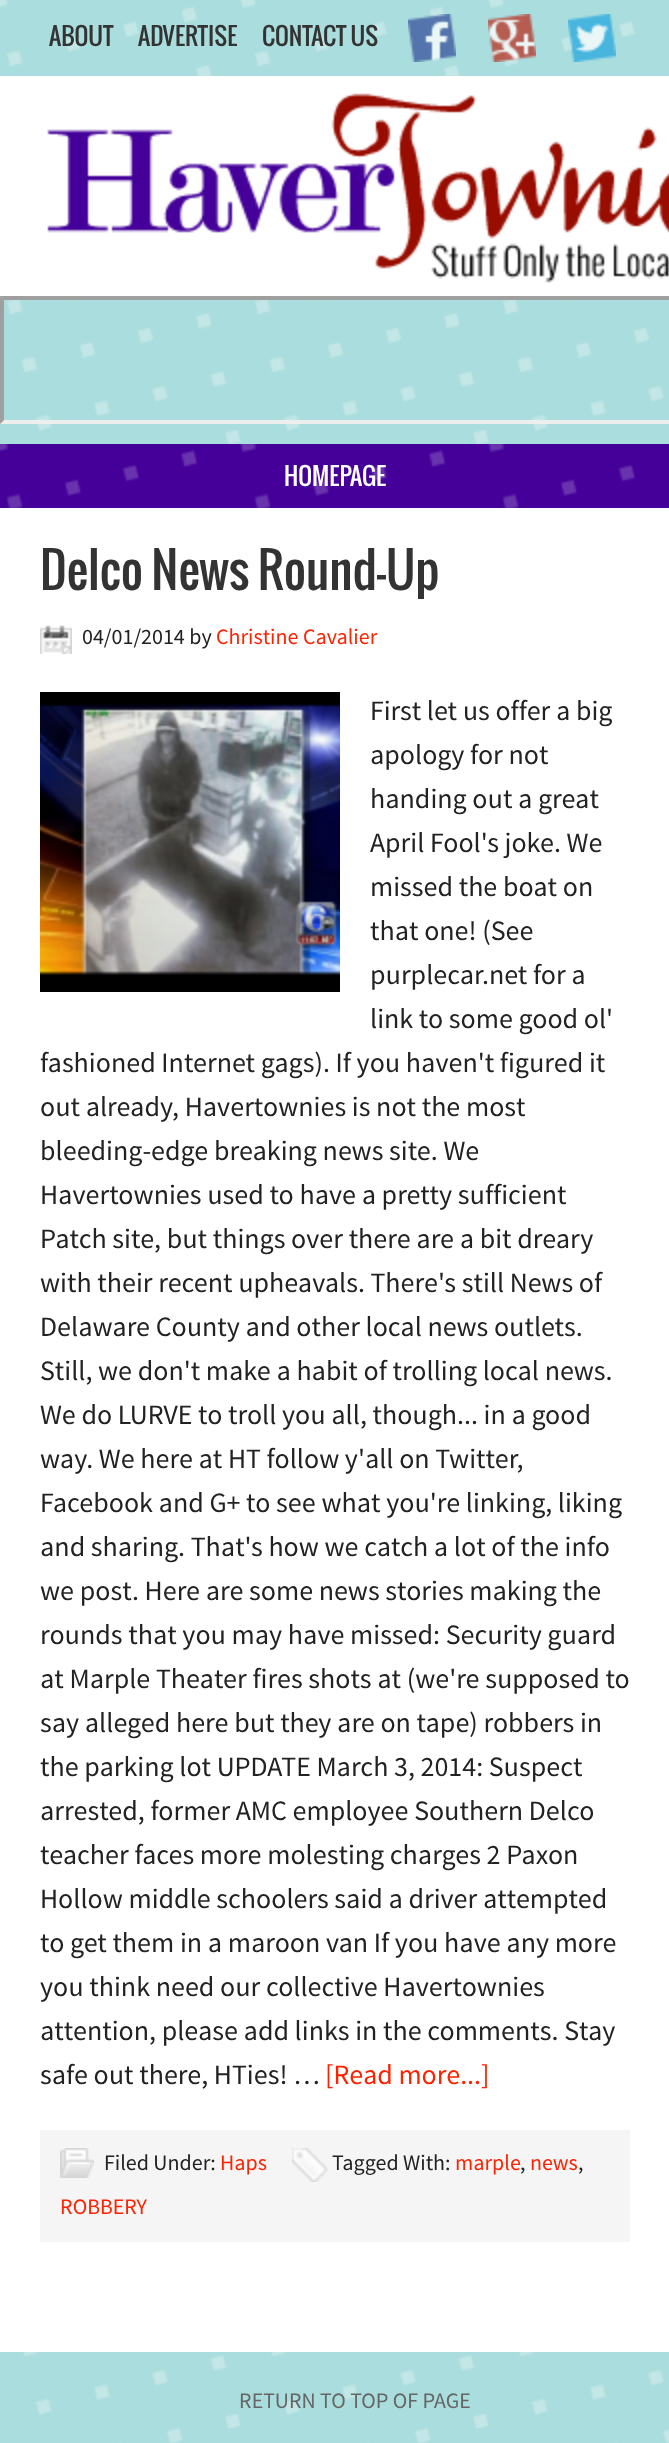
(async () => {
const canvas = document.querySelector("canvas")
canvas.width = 669
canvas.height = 2443
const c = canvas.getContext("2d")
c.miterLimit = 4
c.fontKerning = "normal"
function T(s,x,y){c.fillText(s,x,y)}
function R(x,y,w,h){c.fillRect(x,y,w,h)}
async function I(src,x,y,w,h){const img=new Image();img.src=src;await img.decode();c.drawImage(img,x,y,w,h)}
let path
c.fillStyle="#fff"
R(0,0,669,2443)
await I("1.png",0,0,669,2443)
c.font="24px Oswald"
c.fillStyle="#333"
T("ABOUT",49,46)
T("ADVERTISE",138,46)
T("CONTACT US",262,46)
await I("2.png",408,14,48,48)
await I("3.png",488,14,48,48)
await I("4.png",568,14,48,48)
await I("5.png",0,76,669,220)
c.fillStyle="#9f9f9f"
path = new Path2D("M0 296h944l-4 4h-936z")
c.fill(path)
c.fillStyle="#eee"
path = new Path2D("M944 424h-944l4-4h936z")
c.fill(path)
c.fillStyle="#9f9f9f"
path = new Path2D("M0 424v-128l4 4v120z")
c.fill(path)
await I("6.png",0,444,669,64)
c.fillStyle="#fff"
T("HOMEPAGE",284,486)
R(0,508,669,1844)
c.font="48px Oswald"
c.fillStyle="#333"
T("Delco News Round-Up",40,590)
await I("7.png",40,625,32,29)
c.font="22px Source Sans Pro"
c.fillStyle="#222"
T("04/01/2014 by",82,644)
c.fillStyle="#f20"
T("Christine Cavalier",216,644)
await I("8.png",40,692,300,300)
c.font="28px Source Sans Pro"
c.fillStyle="#222"
T("First let us offer a big",370,720)
T("apology for not",370,764)
T("handing out a great",370,808)
T("April Fool's joke. We",370,852)
T("missed the boat on",370,896)
T("that one! (See",370,940)
T("purplecar.net for a",370,984)
T("link to some good ol'",370,1028)
T("fashioned Internet gags). If you haven't figured it",40,1072)
T("out already, Havertownies is not the most",40,1116)
T("bleeding-edge breaking news site. We",40,1160)
T("Havertownies used to have a pretty sufficient",40,1204)
T("Patch site, but things over there are a bit dreary",40,1248)
T("with their recent upheavals. There's still News of",40,1292)
T("Delaware County and other local news outlets.",40,1336)
T("Still, we don't make a habit of trolling local news.",40,1380)
T("We do LURVE to troll you all, though... in a good",40,1424)
T("way. We here at HT follow y'all on Twitter,",40,1468)
T("Facebook and G+ to see what you're linking, liking",40,1512)
T("and sharing. That's how we catch a lot of the info",40,1556)
T("we post. Here are some news stories making the",40,1600)
T("rounds that you may have missed: Security guard",40,1644)
T("at Marple Theater fires shots at (we're supposed to",40,1688)
T("say alleged here but they are on tape) robbers in",40,1732)
T("the parking lot UPDATE March 3, 2014: Suspect",40,1776)
T("arrested, former AMC employee Southern Delco",40,1820)
T("teacher faces more molesting charges 2 Paxon",40,1864)
T("Hollow middle schoolers said a driver attempted",40,1908)
T("to get them in a maroon van If you have any more",40,1952)
T("you think need our collective Havertownies",40,1996)
T("attention, please add links in the comments. Stay",40,2040)
T("safe out there, HTies! …",40,2084)
c.fillStyle="#f20"
T("[Read more...]",325,2084)
c.fillStyle="#f5f5f5"
R(40,2130,590,112)
await I("9.png",60,2148,34,30)
c.font="22px Source Sans Pro"
c.fillStyle="#222"
T("Filed Under:",104,2170)
c.fillStyle="#f20"
T("Haps",220,2170)
await I("10.png",292,2148,36,34)
c.fillStyle="#222"
T("Tagged With:",332,2170)
c.fillStyle="#f20"
T("marple",455,2170)
c.fillStyle="#222"
T(",",520,2170)
c.fillStyle="#f20"
T("news",530,2170)
c.fillStyle="#222"
T(",",578,2170)
c.fillStyle="#f20"
T("ROBBERY",60,2214)
c.fillStyle="#666"
T("RETURN TO TOP OF PAGE",239,2408)
})()
